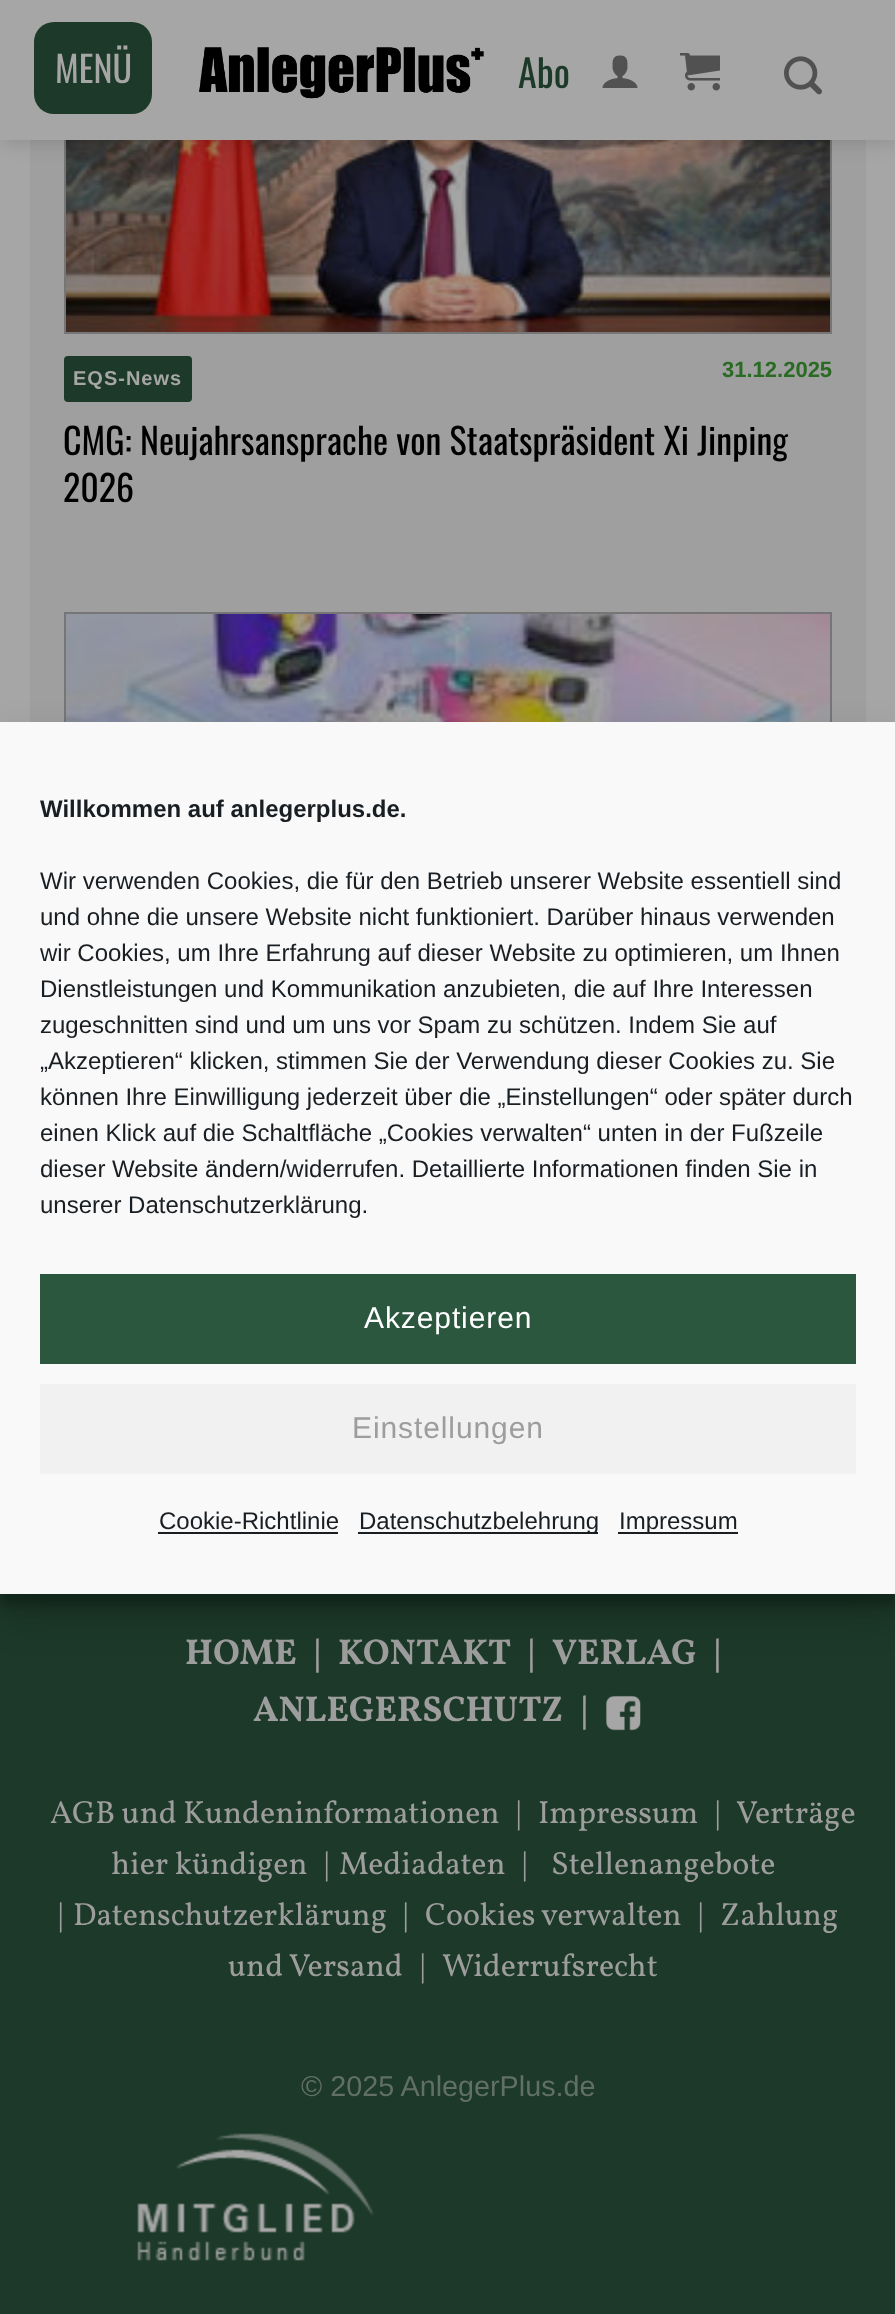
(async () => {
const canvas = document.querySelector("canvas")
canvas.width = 895
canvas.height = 2314
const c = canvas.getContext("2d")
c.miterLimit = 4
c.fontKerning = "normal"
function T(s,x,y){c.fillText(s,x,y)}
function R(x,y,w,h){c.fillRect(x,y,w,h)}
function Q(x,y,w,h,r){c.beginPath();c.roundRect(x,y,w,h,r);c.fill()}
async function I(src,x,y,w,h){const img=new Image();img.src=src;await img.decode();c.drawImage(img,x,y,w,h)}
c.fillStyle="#a6a6a6"
R(0,0,895,2314)
c.fillStyle="#9f9f9f"
R(30,140,836,582)
c.strokeStyle="#767676"
c.lineWidth=2
c.strokeRect(65,-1,766,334)
await I("5.png",66,140,764,192)
c.fillStyle="#00000026"
c.filter="blur(10px)"
c.beginPath()
c.rect(2,2,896,140)
c.fill()
c.filter="none"
c.fillStyle="#a6a6a6"
R(0,0,895,140)
c.fillStyle="#1c3929"
Q(34,22,118,92,20)
c.font="36px Oswald"
c.fillStyle="#a6a6a6"
T("MENÜ",55,83)
await I("1.png",199,47,285,52)
c.font="38px Oswald"
c.fillStyle="#1c3929"
T("Abo",518,88)
await I("2.png",602,55,36,33)
await I("3.png",680,53,40,38)
await I("4.png",784,56,38,39)
Q(64,356,128,46,4)
c.letterSpacing="1px"
c.font="bold 20px Liberation Sans"
c.fillStyle="#a6a6a6"
T("EQS-News",73,385)
c.letterSpacing="0px"
c.font="bold 22px Liberation Sans"
c.fillStyle="#296b22"
T("31.12.2025",722,377)
c.font="36px Oswald"
c.fillStyle="#000"
T("CMG: Neujahrsansprache von Staatspräsident Xi Jinping",63,455)
T("2026",63,502)
c.strokeRect(65,613,766,432)
await I("6.png",66,614,764,108)
c.fillStyle="#1c3929"
R(0,1594,895,720)
c.font="bold 36px Vollkorn"
c.fillStyle="#9d9d9d"
T("HOME",185,1664)
T("|",314,1664)
T("KONTAKT",338,1664)
T("|",528,1664)
T("VERLAG",552,1664)
T("|",714,1664)
T("ANLEGERSCHUTZ",253,1721)
T("|",581,1721)
await I("7.png",605,1695,36,36)
c.font="32px Vollkorn"
T("AGB und Kundeninformationen",50,1823)
T("|",516,1823)
T("Impressum",538,1823)
T("|",715,1823)
T("Verträge",736,1823)
T("hier kündigen",111,1874)
T("|",324,1874)
T("Mediadaten",339,1874)
T("|",522,1874)
T("Stellenangebote",551,1874)
T("|",58,1925)
T("Datenschutzerklärung",73,1925)
T("|",403,1925)
T("Cookies verwalten",425,1925)
T("|",698,1925)
T("Zahlung",720,1925)
T("und Versand",228,1976)
T("|",420,1976)
T("Widerrufsrecht",442,1976)
c.font="28.75px Liberation Sans"
c.fillStyle="#616f67"
T("© 2025 AnlegerPlus.de",301,2096)
await I("8.png",137,2133,238,128)
c.fillStyle="#0000003b"
c.filter="blur(6px)"
c.beginPath()
c.rect(0,734,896,872)
c.fill()
c.filter="none"
c.fillStyle="#00000030"
c.filter="blur(20px)"
c.beginPath()
c.rect(0,742,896,872)
c.fill()
c.filter="none"
c.fillStyle="#f9f9f9"
R(0,722,895,872)
c.font="bold 24px Liberation Sans"
c.fillStyle="#191e23"
T("Willkommen auf anlegerplus.de.",40,817)
c.font="24px Liberation Sans"
T("Wir verwenden Cookies, die für den Betrieb unserer Website essentiell sind",40,889)
T("und ohne die unsere Website nicht funktioniert. Darüber hinaus verwenden",40,925)
T("wir Cookies, um Ihre Erfahrung auf dieser Website zu optimieren, um Ihnen",40,961)
T("Dienstleistungen und Kommunikation anzubieten, die auf Ihre Interessen",40,997)
T("zugeschnitten sind und um uns vor Spam zu schützen. Indem Sie auf",40,1033)
T("„Akzeptieren“ klicken, stimmen Sie der Verwendung dieser Cookies zu. Sie",40,1069)
T("können Ihre Einwilligung jederzeit über die „Einstellungen“ oder später durch",40,1105)
T("einen Klick auf die Schaltfläche „Cookies verwalten“ unten in der Fußzeile",40,1141)
T("dieser Website ändern/widerrufen. Detaillierte Informationen finden Sie in",40,1177)
T("unserer Datenschutzerklärung.",40,1213)
c.fillStyle="#2b573f"
R(40,1274,816,90)
c.letterSpacing="0.9px"
c.font="30px Liberation Sans"
c.fillStyle="#fff"
T("Akzeptieren",364,1328)
c.fillStyle="#f1f1f1"
R(40,1384,816,90)
c.fillStyle="#9d9d9d"
T("Einstellungen",352,1438)
c.letterSpacing="0px"
c.font="24px Liberation Sans"
c.fillStyle="#191e23"
T("Cookie-Richtlinie",159,1529)
R(158,1532,180,2)
R(358,1532,240,2)
T("Datenschutzbelehrung",359,1529)
R(618,1532,120,2)
T("Impressum",619,1529)
})()
